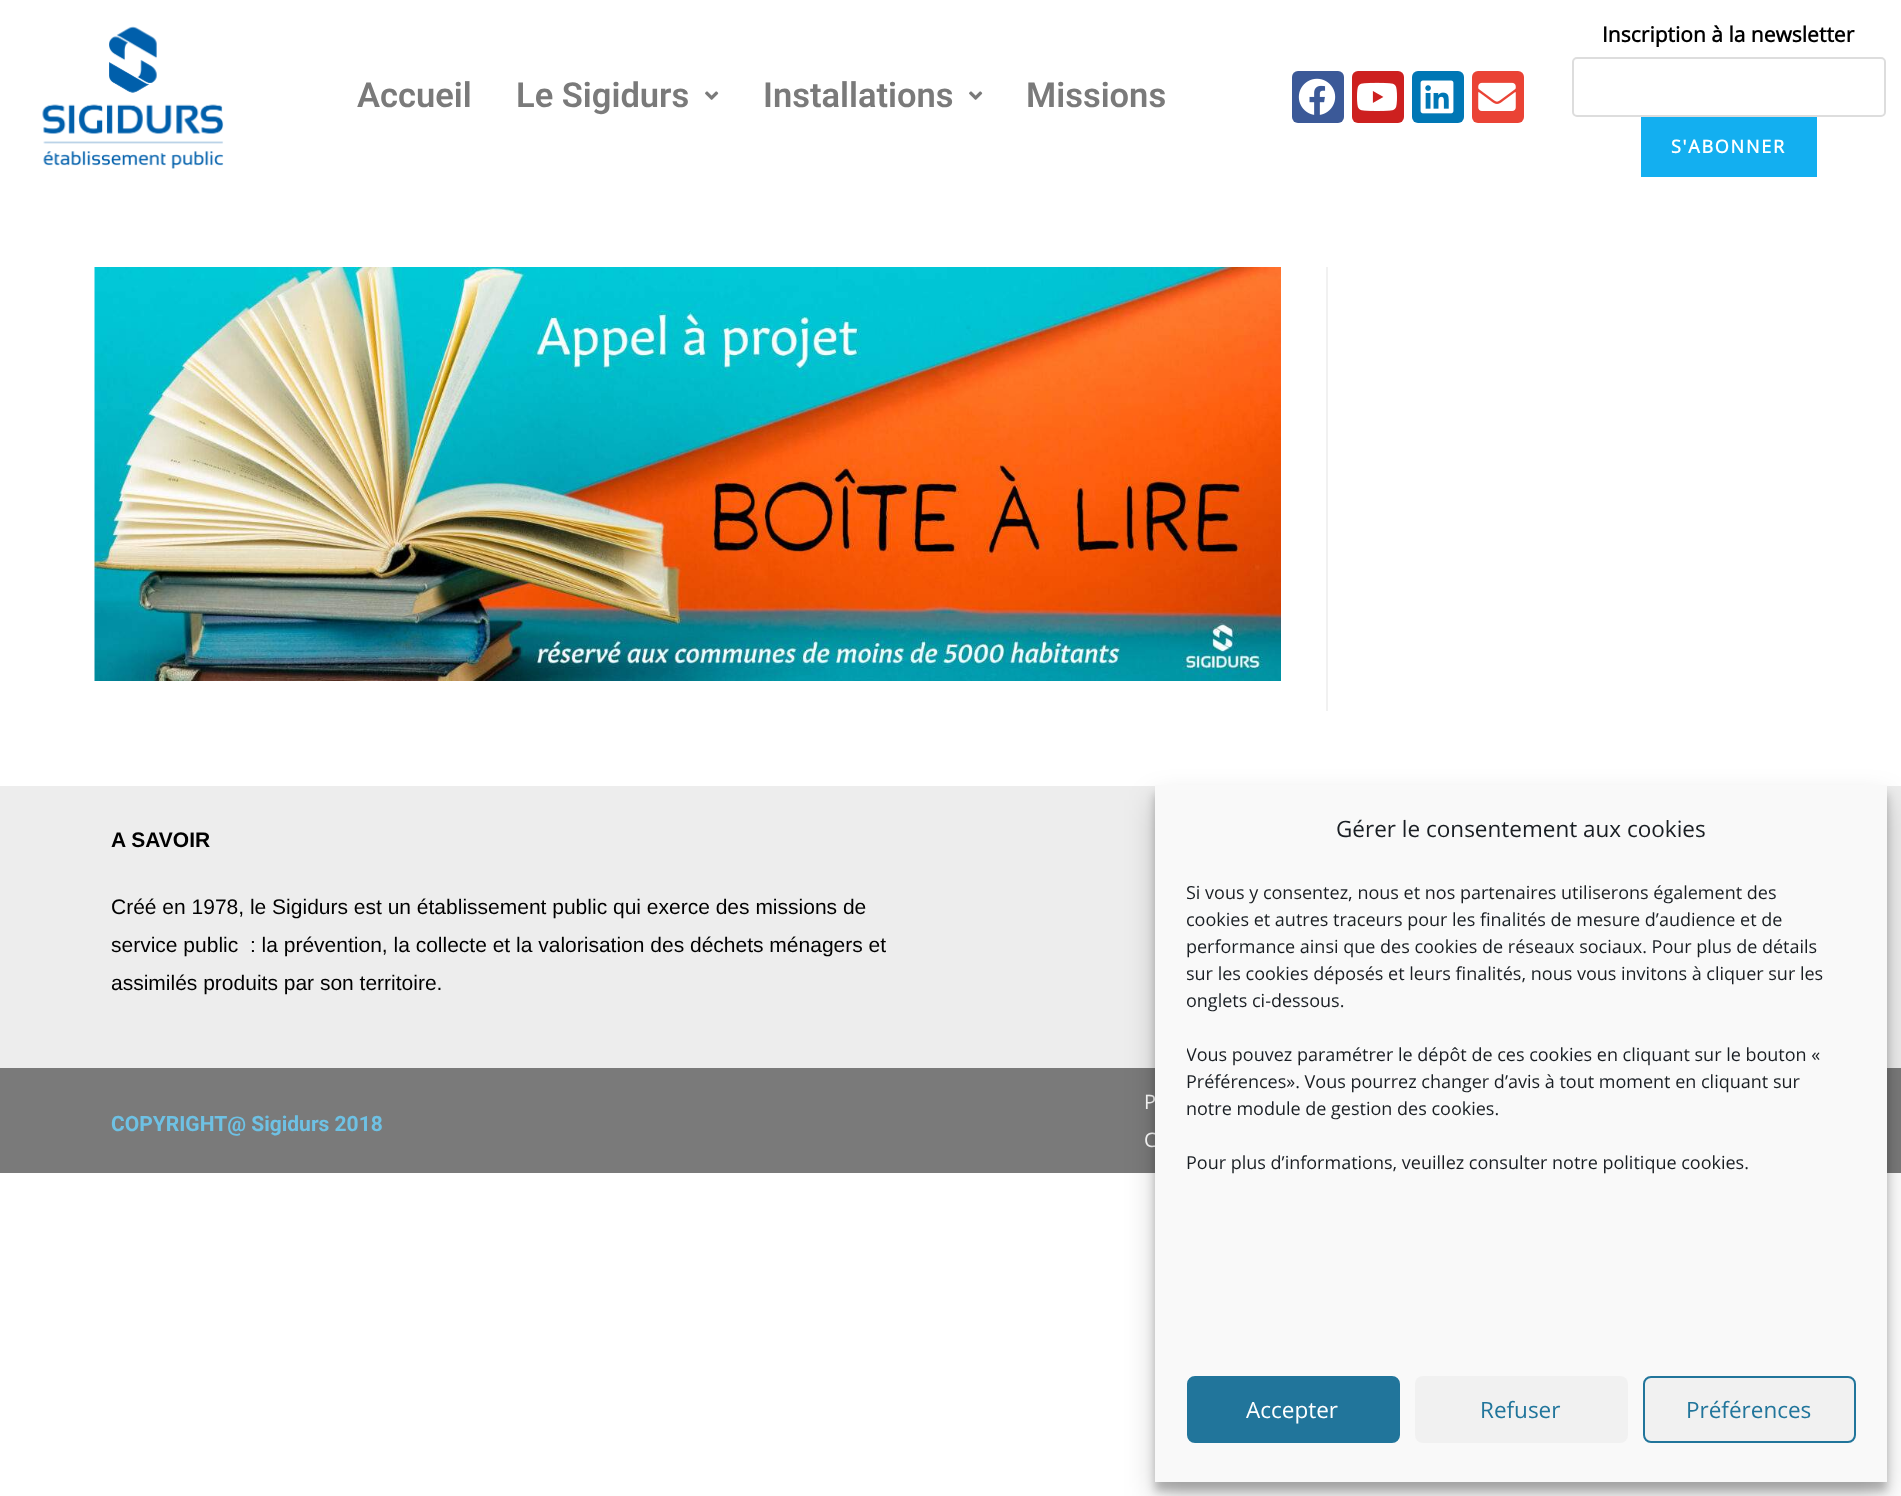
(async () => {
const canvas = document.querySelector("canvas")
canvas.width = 1901
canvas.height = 1496
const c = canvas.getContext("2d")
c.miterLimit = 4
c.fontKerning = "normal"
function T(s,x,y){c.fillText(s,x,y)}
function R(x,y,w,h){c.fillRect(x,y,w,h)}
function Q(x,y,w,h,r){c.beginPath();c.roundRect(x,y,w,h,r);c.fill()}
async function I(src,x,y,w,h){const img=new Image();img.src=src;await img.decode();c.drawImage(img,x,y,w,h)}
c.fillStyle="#fff"
R(0,0,1901,1496)
await I("1.png",42,26,182,143)
c.font="600 34.5px Roboto"
c.fillStyle="#7a7a7a"
T("Accueil",357,107)
T("Le Sigidurs",516,107)
await I("2.png",705,91,14,9)
T("Installations",763,107)
await I("2.png",969,91,14,9)
T("Missions",1026,107)
c.fillStyle="#3b5998"
Q(1292,71,52,52,6)
await I("3.png",1298,78,38,37)
c.fillStyle="#cd201f"
Q(1352,71,52,52,6)
await I("4.png",1357,82,40,29)
c.fillStyle="#0077b5"
Q(1412,71,52,52,6)
await I("5.png",1420,80,34,34)
c.fillStyle="#ea4335"
Q(1472,71,52,52,6)
await I("6.png",1478,82,38,29)
c.font="bold 21px Open Sans"
c.fillStyle="#000"
T("Inscription à la newsletter",1602,42)
c.beginPath()
c.roundRect(1573,58,312,58,4)
c.strokeStyle="#ddd"
c.lineWidth=2
c.stroke()
c.fillStyle="#13aff0"
R(1641,117,176,60)
c.letterSpacing="1.75px"
c.font="bold 18px Open Sans"
c.fillStyle="#fff"
T("S'ABONNER",1671,153)
c.fillStyle="#f1f1f1"
R(1326,267,2,444)
await I("7.png",94,267,1187,414)
c.fillStyle="#ededed"
R(0,786,1901,282)
c.letterSpacing="0px"
c.font="bold 21px Liberation Sans"
c.fillStyle="#000"
T("A SAVOIR",111,847)
c.font="21px Liberation Sans"
T("Créé en 1978, le Sigidurs est un établissement public qui exerce des missions de",111,914)
T("service public  : la prévention, la collecte et la valorisation des déchets ménagers et",111,952)
T("assimilés produits par son territoire.",111,990)
c.fillStyle="#7a7a7a"
R(0,1068,1901,105)
c.font="bold 21px Roboto"
c.fillStyle="#6ec1e4"
T("COPYRIGHT@ Sigidurs 2018",111,1131)
c.font="20px Open Sans"
c.fillStyle="#fff"
T("P",1144,1109)
T("C",1144,1147)
c.fillStyle="#0000003b"
c.filter="blur(4.5px)"
c.beginPath()
c.rect(1155,794,732,697)
c.fill()
c.filter="none"
c.fillStyle="#00000030"
c.filter="blur(15px)"
c.beginPath()
c.rect(1155,800,732,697)
c.fill()
c.filter="none"
c.fillStyle="#f9f9f9"
R(1155,785,732,697)
c.font="22.5px Open Sans"
c.fillStyle="#191e23"
T("Gérer le consentement aux cookies",1336,837)
c.save()
c.beginPath()
c.rect(1187,879,669,467)
c.clip()
c.font="18px Open Sans"
T("Si vous y consentez, nous et nos partenaires utiliserons également des",1186,899)
T("cookies et autres traceurs pour les finalités de mesure d’audience et de",1186,926)
c.restore()
c.font="18px Open Sans"
T("performance ainsi que des cookies de réseaux sociaux. Pour plus de détails",1186,953)
c.save()
c.beginPath()
c.rect(1187,879,669,467)
c.clip()
T("sur les cookies déposés et leurs finalités, nous vous invitons à cliquer sur les",1186,980)
T("onglets ci-dessous.",1186,1007)
T("Vous pouvez paramétrer le dépôt de ces cookies en cliquant sur le bouton «",1186,1061)
c.restore()
T("Préférences». Vous pourrez changer d’avis à tout moment en cliquant sur",1186,1088)
T("notre module de gestion des cookies.",1186,1115)
T("Pour plus d’informations, veuillez consulter notre politique cookies.",1186,1169)
c.fillStyle="#21759b"
c.beginPath()
c.roundRect(1188,1377,211,65,7)
c.fill()
c.strokeStyle="#21759b"
c.stroke()
c.font="22.5px Open Sans"
c.fillStyle="#fff"
T("Accepter",1246,1418)
c.fillStyle="#f1f1f1"
Q(1415,1376,213,67,8)
c.fillStyle="#21759b"
T("Refuser",1480,1418)
c.fillStyle="#f1f1f1"
c.beginPath()
c.roundRect(1644,1377,211,65,7)
c.fill()
c.stroke()
c.fillStyle="#21759b"
T("Préférences",1686,1418)
})()
